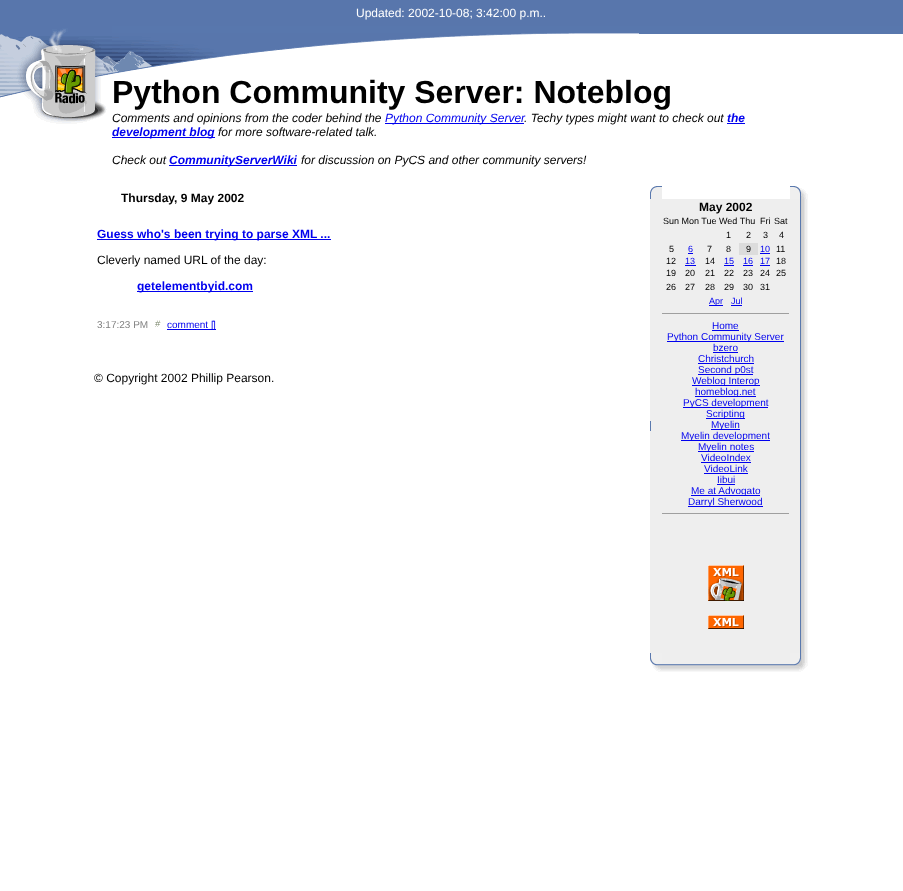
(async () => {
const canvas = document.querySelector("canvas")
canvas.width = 903
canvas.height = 891
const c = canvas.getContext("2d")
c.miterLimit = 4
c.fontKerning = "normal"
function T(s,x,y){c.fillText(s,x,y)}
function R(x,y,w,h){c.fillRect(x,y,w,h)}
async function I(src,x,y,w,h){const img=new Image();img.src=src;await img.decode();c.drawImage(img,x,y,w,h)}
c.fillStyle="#fff"
R(0,0,903,891)
c.fillStyle="#5876ac"
R(0,0,903,26)
c.font="12px Liberation Sans"
c.fillStyle="#fff"
T("Updated: 2002-10-08; 3:42:00 p.m..",356,17)
await I("1.png",0,26,112,48)
c.fillStyle="#5877ad"
R(112,26,791,8)
await I("2.png",112,33,527,41)
await I("3.png",0,74,111,50)
c.font="bold 32px Liberation Sans"
c.fillStyle="#000"
T("Python Community Server: Noteblog",112,103)
c.font="italic 12px Liberation Sans"
T("Comments and opinions from the coder behind the",112,122)
c.fillStyle="#00e"
R(385,123,139,1)
T("Python Community Server",385,122)
c.fillStyle="#000"
T(". Techy types might want to check out",524,122)
c.fillStyle="#00e"
R(727,123,18,1)
c.font="italic bold 12px Liberation Sans"
T("the",727,122)
R(112,137,103,1)
T("development blog",112,136)
c.font="italic 12px Liberation Sans"
c.fillStyle="#000"
T("for more software-related talk.",218,136)
T("Check out",112,164)
c.fillStyle="#00e"
R(169,165,128,1)
c.font="italic bold 12px Liberation Sans"
T("CommunityServerWiki",169,164)
c.font="italic 12px Liberation Sans"
c.fillStyle="#000"
T("for discussion on PyCS and other community servers!",301,164)
c.font="bold 12px Liberation Sans"
T("Thursday, 9 May 2002",121,202)
c.fillStyle="#00e"
R(97,239,234,1)
T("Guess who's been trying to parse XML ...",97,238)
c.font="12px Liberation Sans"
c.fillStyle="#000"
T("Cleverly named URL of the day:",97,264)
c.fillStyle="#00e"
R(137,291,116,1)
c.font="bold 12px Liberation Sans"
T("getelementbyid.com",137,290)
c.font="10px Liberation Sans"
c.fillStyle="#808080"
T("3:17:23 PM",97,328)
await I("4.png",155,320,6,7)
c.fillStyle="#00e"
R(167,329,46,1)
T("comment [",167,328)
R(213,329,3,1)
T("]",213,328)
c.font="12px Liberation Sans"
c.fillStyle="#000"
T("© Copyright 2002 Phillip Pearson.",94,382)
await I("5.png",650,186,12,13)
await I("6.png",790,186,18,13)
c.fillStyle="#eee"
R(650,199,140,454)
c.fillStyle="#5a79ae"
R(650,421,1,10)
await I("7.png",790,199,18,454)
c.font="bold 12px Liberation Sans"
c.fillStyle="#000"
T("May 2002",699,211)
c.font="9px Liberation Sans"
T("Sun Mon Tue Wed Thu",663,224)
T("Fri",760,224)
T("Sat",774,224)
T("1",726,238)
T("2",746,238)
T("3",763,238)
T("4",779,238)
T("5",669,252)
c.fillStyle="#00e"
T("6",688,252)
R(688,253,5,1)
c.fillStyle="#000"
T("7",707,252)
T("8",726,252)
c.fillStyle="#dcdcdc"
R(739,243,19,12)
c.fillStyle="#000"
T("9",746,252)
c.fillStyle="#00e"
T("10",760,252)
R(760,253,10,1)
c.fillStyle="#000"
T("11",776,252)
T("12",666,264)
c.fillStyle="#00e"
T("13",685,264)
R(685,265,11,1)
c.fillStyle="#000"
T("14",705,264)
c.fillStyle="#00e"
T("15",724,264)
R(724,265,10,1)
T("16",743,264)
R(743,265,10,1)
T("17",760,264)
R(760,265,10,1)
c.fillStyle="#000"
T("18",776,264)
T("19",666,276)
T("20",685,276)
T("21",705,276)
T("22",724,276)
T("23",743,276)
T("24",760,276)
T("25",776,276)
T("26",666,290)
T("27",685,290)
T("28",705,290)
T("29",724,290)
T("30",743,290)
T("31",760,290)
c.fillStyle="#00e"
R(709,305,14,1)
T("Apr",709,304)
T("Jul",731,304)
R(731,305,11,1)
c.fillStyle="#9f9f9f"
R(662,313,128,1)
c.fillStyle="#eee"
R(789,313,1,1)
c.font="10px Liberation Sans"
c.fillStyle="#00e"
T("Home",712,329)
R(712,330,27,1)
R(667,341,117,1)
T("Python Community Server",667,340)
T("bzero",713,351)
R(713,352,25,1)
T("Christchurch",698,362)
R(698,363,56,1)
R(698,374,55,1)
T("Second p0st",698,373)
R(692,385,68,1)
T("Weblog Interop",692,384)
R(695,396,61,1)
T("homeblog.net",695,395)
R(683,407,85,1)
T("PyCS development",683,406)
R(706,418,39,1)
T("Scripting",706,417)
R(711,429,29,1)
T("Myelin",711,428)
R(681,440,89,1)
T("Myelin development",681,439)
R(698,451,56,1)
T("Myelin notes",698,450)
T("VideoIndex",701,461)
R(701,462,50,1)
T("VideoLink",704,472)
R(704,473,44,1)
T("Iibui",717,483)
R(717,484,18,1)
R(691,495,69,1)
T("Me at Advogato",691,494)
R(688,506,75,1)
T("Darryl Sherwood",688,505)
c.fillStyle="#9f9f9f"
R(662,513,128,1)
c.fillStyle="#eee"
R(789,513,1,1)
await I("8.png",708,565,36,36)
await I("9.png",708,615,36,14)
await I("10.png",650,653,12,19)
await I("11.png",662,653,128,19)
await I("12.png",790,653,18,19)
})()
